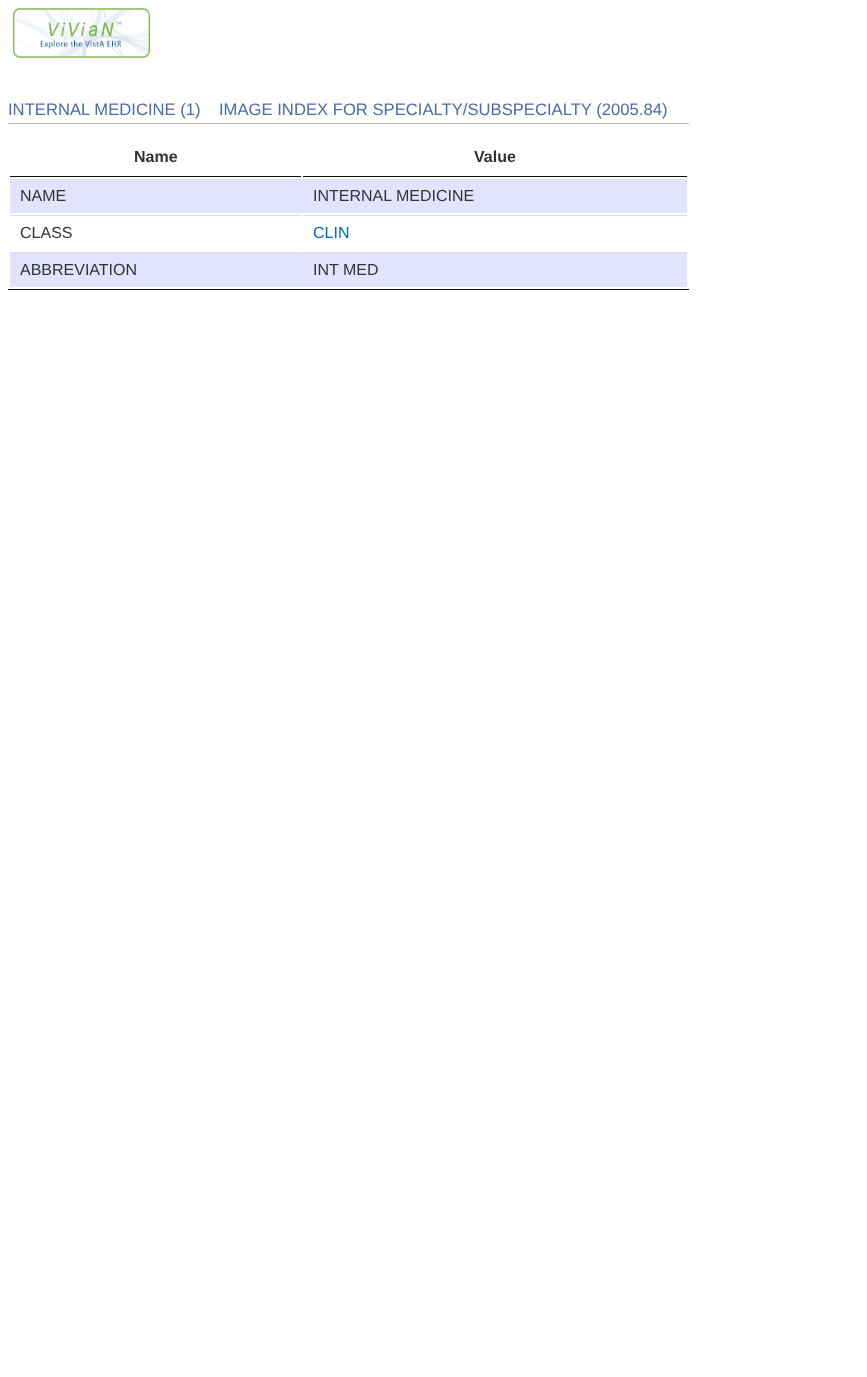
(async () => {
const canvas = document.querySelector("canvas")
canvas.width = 867
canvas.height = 1377
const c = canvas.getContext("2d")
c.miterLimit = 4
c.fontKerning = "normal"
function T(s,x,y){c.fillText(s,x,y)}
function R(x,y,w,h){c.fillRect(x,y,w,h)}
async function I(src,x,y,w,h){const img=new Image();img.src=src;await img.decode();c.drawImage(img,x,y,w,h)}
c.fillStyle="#fff"
R(0,0,867,1377)
await I("1.png",13,8,137,50)
c.fillStyle="#b0bed9"
R(8,123,681,1)
c.font="16.65px Liberation Sans"
c.fillStyle="#4e6ca3"
T("INTERNAL MEDICINE (1)",8,115)
T("IMAGE INDEX FOR SPECIALTY/SUBSPECIALTY (2005.84)",219,115)
c.fillStyle="#111"
R(8,289,681,1)
R(10,176,291,1)
c.font="bold 16px Liberation Sans"
c.fillStyle="#333"
T("Name",134,162)
c.fillStyle="#111"
R(303,176,384,1)
c.fillStyle="#333"
T("Value",474,162)
c.fillStyle="#e2e4ff"
R(10,179,677,34)
c.font="16px Liberation Sans"
c.fillStyle="#333"
T("NAME",20,201)
T("INTERNAL MEDICINE",313,201)
c.fillStyle="#ddd"
R(10,215,291,1)
c.fillStyle="#333"
T("CLASS",20,238)
c.fillStyle="#ddd"
R(303,215,384,1)
c.fillStyle="#0063dc"
T("CLIN",313,238)
c.fillStyle="#e2e4ff"
R(10,252,677,35)
c.fillStyle="#ddd"
R(10,252,291,1)
c.fillStyle="#333"
T("ABBREVIATION",20,275)
c.fillStyle="#ddd"
R(303,252,384,1)
c.fillStyle="#333"
T("INT MED",313,275)
})()
